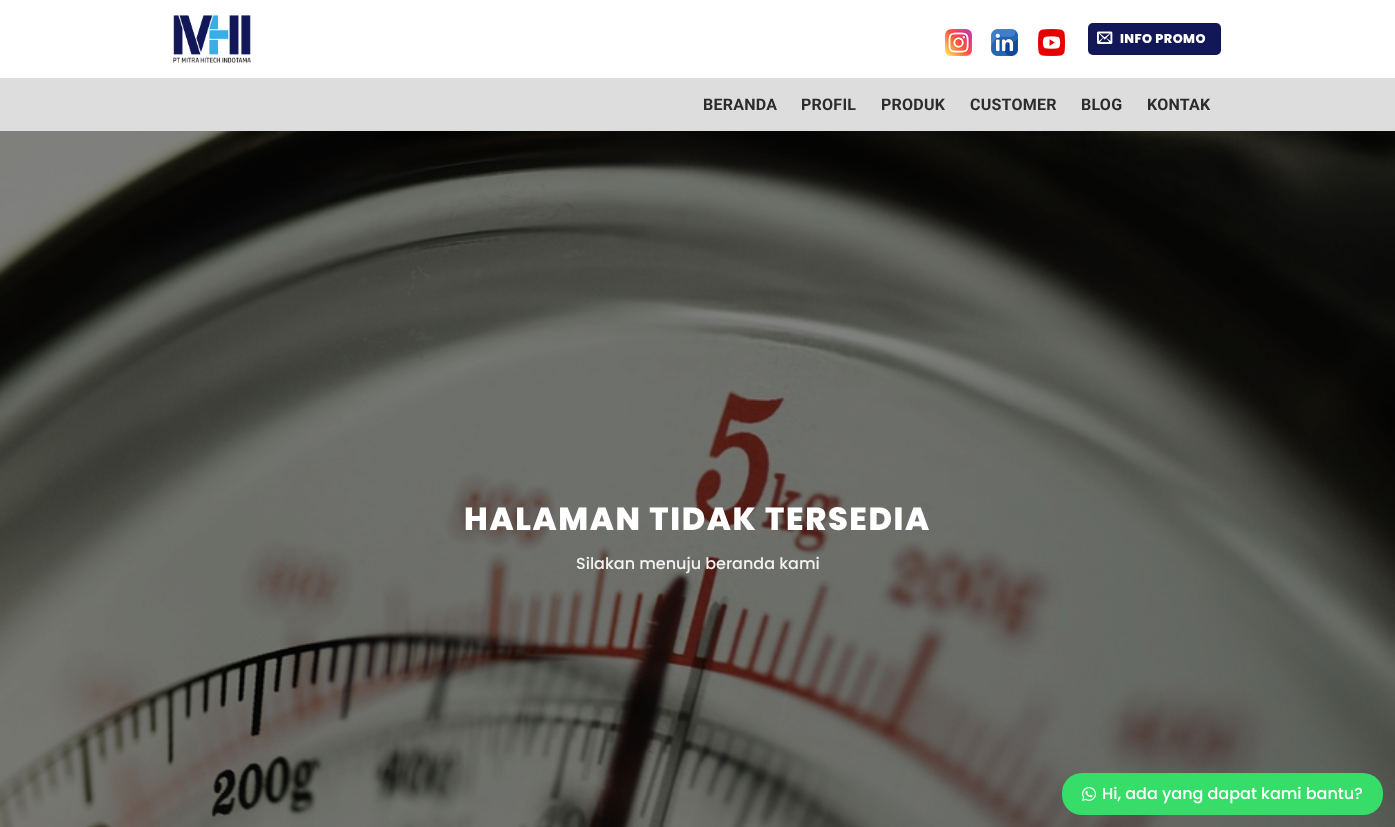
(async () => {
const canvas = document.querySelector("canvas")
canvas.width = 1395
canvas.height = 827
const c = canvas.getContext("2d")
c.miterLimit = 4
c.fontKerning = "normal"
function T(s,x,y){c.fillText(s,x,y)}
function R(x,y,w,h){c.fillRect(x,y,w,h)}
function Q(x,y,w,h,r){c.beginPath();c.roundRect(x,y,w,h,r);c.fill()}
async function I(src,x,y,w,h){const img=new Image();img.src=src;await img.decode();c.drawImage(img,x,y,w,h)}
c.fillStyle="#fff"
R(0,0,1395,827)
await I("1.png",173,15,78,48)
await I("2.png",945,29,27,27)
await I("3.png",991,29,27,27)
await I("4.png",1038,29,27,27)
c.fillStyle="#121857"
Q(1088,23,133,32,5)
c.strokeStyle="#0000000d"
c.strokeRect(1088.5,23.5,132,31)
await I("5.png",1097,31,16,13)
c.letterSpacing="0.4px"
c.font="800 12.75px Poppins"
c.fillStyle="#fff"
T("INFO PROMO",1120,43)
c.fillStyle="#ddd"
R(0,78,1395,53)
c.letterSpacing="0.25px"
c.font="bold 16px Roboto"
c.fillStyle="#2c2c2c"
T("BERANDA",703,110)
T("PROFIL",801,110)
T("PRODUK",881,110)
T("CUSTOMER",970,110)
T("BLOG",1081,110)
T("KONTAK",1147,110)
await I("6.png",0,131,1395,696)
c.letterSpacing="1.6px"
c.font="800 32px Poppins"
c.fillStyle="#fff"
T("HALAMAN TIDAK TERSEDIA",464,530)
c.letterSpacing="0px"
c.font="500 16px Poppins"
c.fillStyle="#f1f1f1"
T("Silakan menuju beranda kami",576,569)
c.fillStyle="#37dd69"
Q(1062,773,321,42,20)
await I("7.png",1082,787,14,14)
c.fillStyle="#fff"
T("Hi, ada yang dapat kami bantu?",1102,799)
})()
